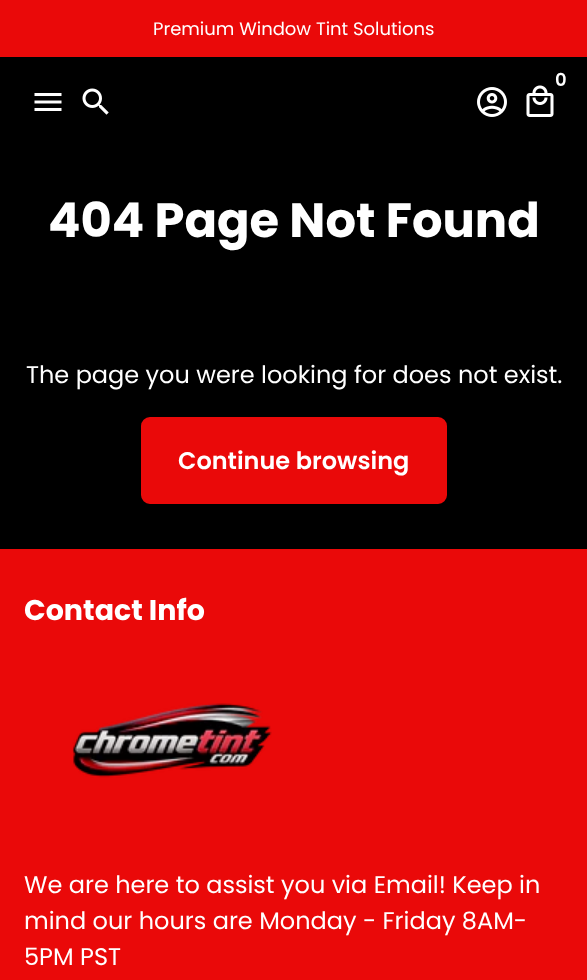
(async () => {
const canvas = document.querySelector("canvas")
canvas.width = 587
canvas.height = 980
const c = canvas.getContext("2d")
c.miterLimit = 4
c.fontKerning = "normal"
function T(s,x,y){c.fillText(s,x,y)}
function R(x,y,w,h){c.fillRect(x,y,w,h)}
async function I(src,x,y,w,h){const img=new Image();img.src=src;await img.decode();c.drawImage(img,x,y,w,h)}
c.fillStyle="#000"
R(0,0,587,980)
c.fillStyle="#ea0909"
R(0,0,587,57)
c.font="18px Poppins"
c.fillStyle="#fff"
T("Premium Window Tint Solutions",153,35)
c.font="600 18px Poppins"
T("0",555,86)
await I("1.png",526,85,28,32)
await I("2.png",477,87,30,30)
await I("3.png",34,93,28,18)
await I("4.png",82,88,27,27)
c.font="bold 48px Poppins"
T("404 Page Not Found",48,237)
c.font="24px Poppins"
T("The page you were looking for does not exist.",26,383)
c.fillStyle="#ea0909"
c.beginPath()
c.roundRect(142,418,304,85,8)
c.fill()
c.strokeStyle="#ea0909"
c.lineWidth=2
c.stroke()
c.font="600 24px Poppins"
c.fillStyle="#fff"
T("Continue browsing",178,469)
c.fillStyle="#ea0909"
R(0,549,587,431)
c.font="bold 28.5px Poppins"
c.fillStyle="#fff"
T("Contact Info",24,620)
await I("5.png",72,703,200,75)
c.font="24px Poppins"
T("We are here to assist you via Email! Keep in",24,893)
T("mind our hours are Monday - Friday 8AM-",24,929)
T("5PM PST",24,965)
})()
